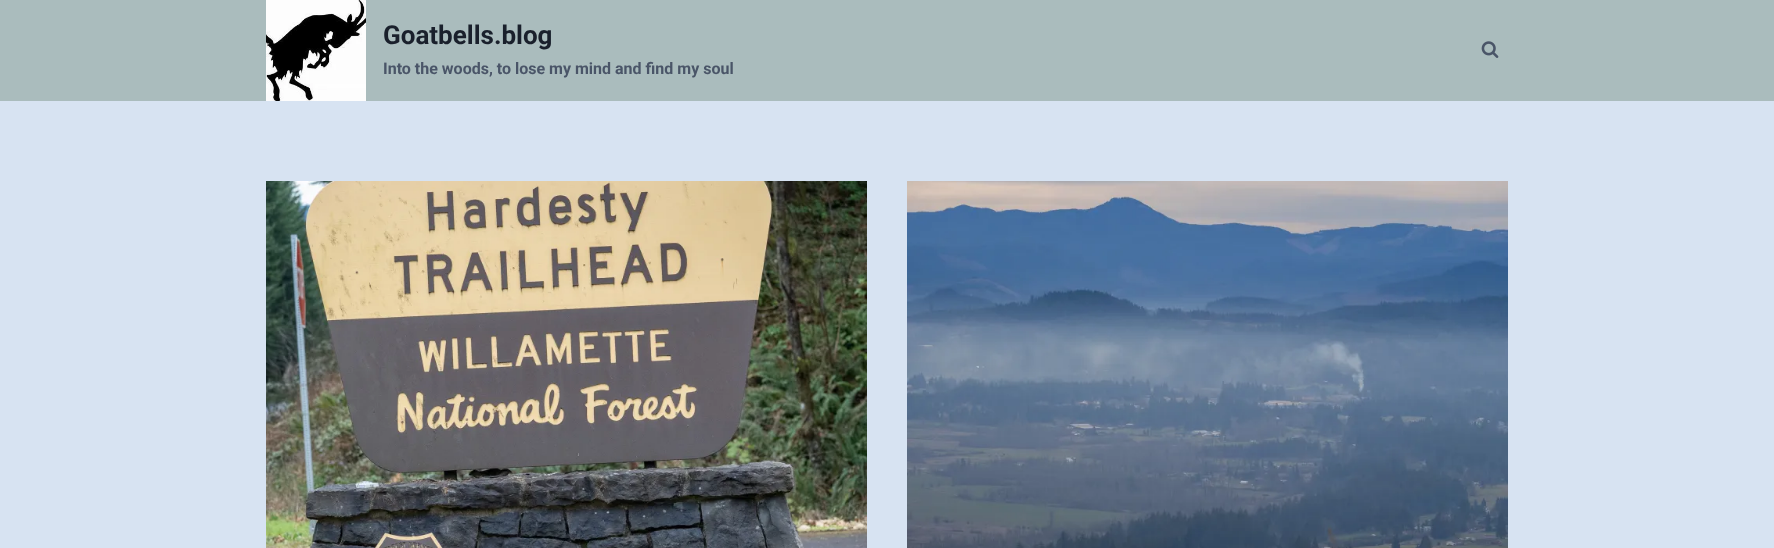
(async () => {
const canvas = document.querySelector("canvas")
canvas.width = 1774
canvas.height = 548
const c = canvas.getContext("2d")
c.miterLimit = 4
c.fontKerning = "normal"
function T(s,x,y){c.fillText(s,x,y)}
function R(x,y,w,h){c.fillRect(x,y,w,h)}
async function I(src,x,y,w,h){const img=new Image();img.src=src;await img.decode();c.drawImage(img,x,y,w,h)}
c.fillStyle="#d7e3f2"
R(0,0,1774,548)
c.fillStyle="#aabcbd"
R(0,0,1774,101)
await I("1.png",266,0,100,101)
c.font="bold 26px Roboto"
c.fillStyle="#1a202c"
T("Goatbells.blog",383,44)
c.font="bold 16px Roboto"
c.fillStyle="#4a5568"
T("Into the woods, to lose my mind and find my soul",383,74)
await I("2.png",1481,41,18,17)
await I("3.png",266,181,601,367)
await I("4.png",907,181,601,367)
})()
